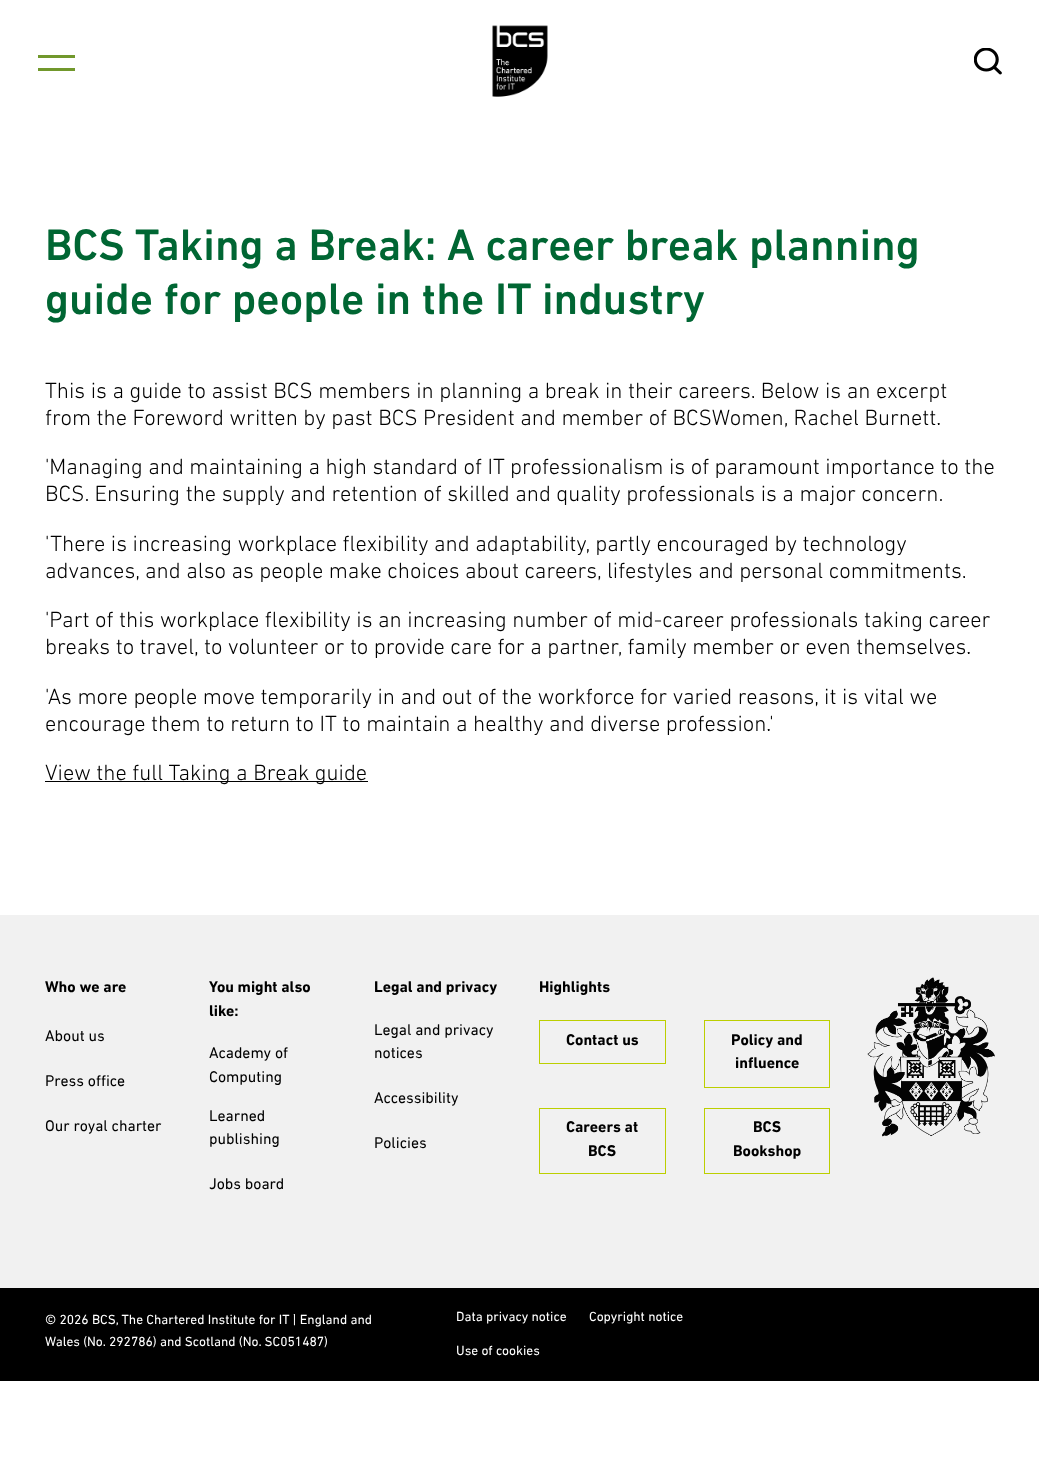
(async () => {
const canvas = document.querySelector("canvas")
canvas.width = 1039
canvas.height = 1473
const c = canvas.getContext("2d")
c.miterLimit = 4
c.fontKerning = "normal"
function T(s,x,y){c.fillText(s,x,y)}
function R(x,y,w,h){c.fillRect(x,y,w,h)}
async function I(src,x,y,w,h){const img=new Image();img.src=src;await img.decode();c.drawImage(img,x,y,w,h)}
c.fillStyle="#fff"
R(0,0,1039,1473)
c.fillStyle="#71982c"
R(38,55,37,3)
R(38,68,37,3)
await I("1.png",492,25,56,72)
await I("2.png",974,48,28,27)
c.font="500 45px DIN Next"
c.fillStyle="#063"
T("BCS Taking a Break: A career break planning",45,260)
T("guide for people in the IT industry",45,314)
c.font="300 22.5px DIN Next"
c.fillStyle="#000"
T("This is a guide to assist BCS members in planning a break in their careers. Below is an excerpt",45,398)
T("from the Foreword written by past BCS President and member of BCSWomen, Rachel Burnett.",45,425)
T("'Managing and maintaining a high standard of IT professionalism is of paramount importance to the",45,474)
T("BCS. Ensuring the supply and retention of skilled and quality professionals is a major concern.",45,501)
T("'There is increasing workplace flexibility and adaptability, partly encouraged by technology",45,551)
T("advances, and also as people make choices about careers, lifestyles and personal commitments.",45,578)
T("'Part of this workplace flexibility is an increasing number of mid-career professionals taking career",45,627)
T("breaks to travel, to volunteer or to provide care for a partner, family member or even themselves.",45,654)
T("'As more people move temporarily in and out of the workforce for varied reasons, it is vital we",45,704)
T("encourage them to return to IT to maintain a healthy and diverse profession.'",45,731)
R(45,781,323,1)
T("View the full Taking a Break guide",45,780)
c.fillStyle="#f1f1f1"
R(0,915,1039,373)
c.font="bold 15.75px DIN Next"
c.fillStyle="#000"
T("Who we are",45,992)
c.font="15.75px DIN Next"
T("About us",45,1041)
T("Press office",45,1086)
T("Our royal charter",45,1131)
c.font="bold 15.75px DIN Next"
T("You might also",209,992)
T("like:",209,1016)
c.font="15.75px DIN Next"
T("Academy of",209,1058)
T("Computing",209,1082)
T("Learned",209,1121)
T("publishing",209,1144)
T("Jobs board",209,1189)
c.font="bold 15.75px DIN Next"
T("Legal and privacy",374,992)
c.font="15.75px DIN Next"
T("Legal and privacy",374,1035)
T("notices",374,1058)
T("Accessibility",374,1103)
T("Policies",374,1148)
c.font="bold 15.75px DIN Next"
T("Highlights",539,992)
c.strokeStyle="#bccf00"
c.strokeRect(539.5,1020.5,126,43)
T("Contact us",566,1045)
c.strokeRect(704.5,1020.5,125,67)
T("Policy and",731,1045)
T("influence",735,1068)
c.strokeRect(539.5,1108.5,126,65)
T("Careers at",566,1132)
T("BCS",588,1156)
c.strokeRect(704.5,1108.5,125,65)
T("BCS",753,1132)
T("Bookshop",733,1156)
await I("3.png",867,977,128,160)
R(0,1288,1039,93)
c.font="13.5px DIN Next"
c.fillStyle="#fff"
T("© 2026 BCS, The Chartered Institute for IT | England and",45,1324)
T("Wales (No. 292786) and Scotland (No. SC051487)",45,1346)
T("Data privacy notice",456,1321)
T("Copyright notice",589,1321)
T("Use of cookies",456,1355)
})()
